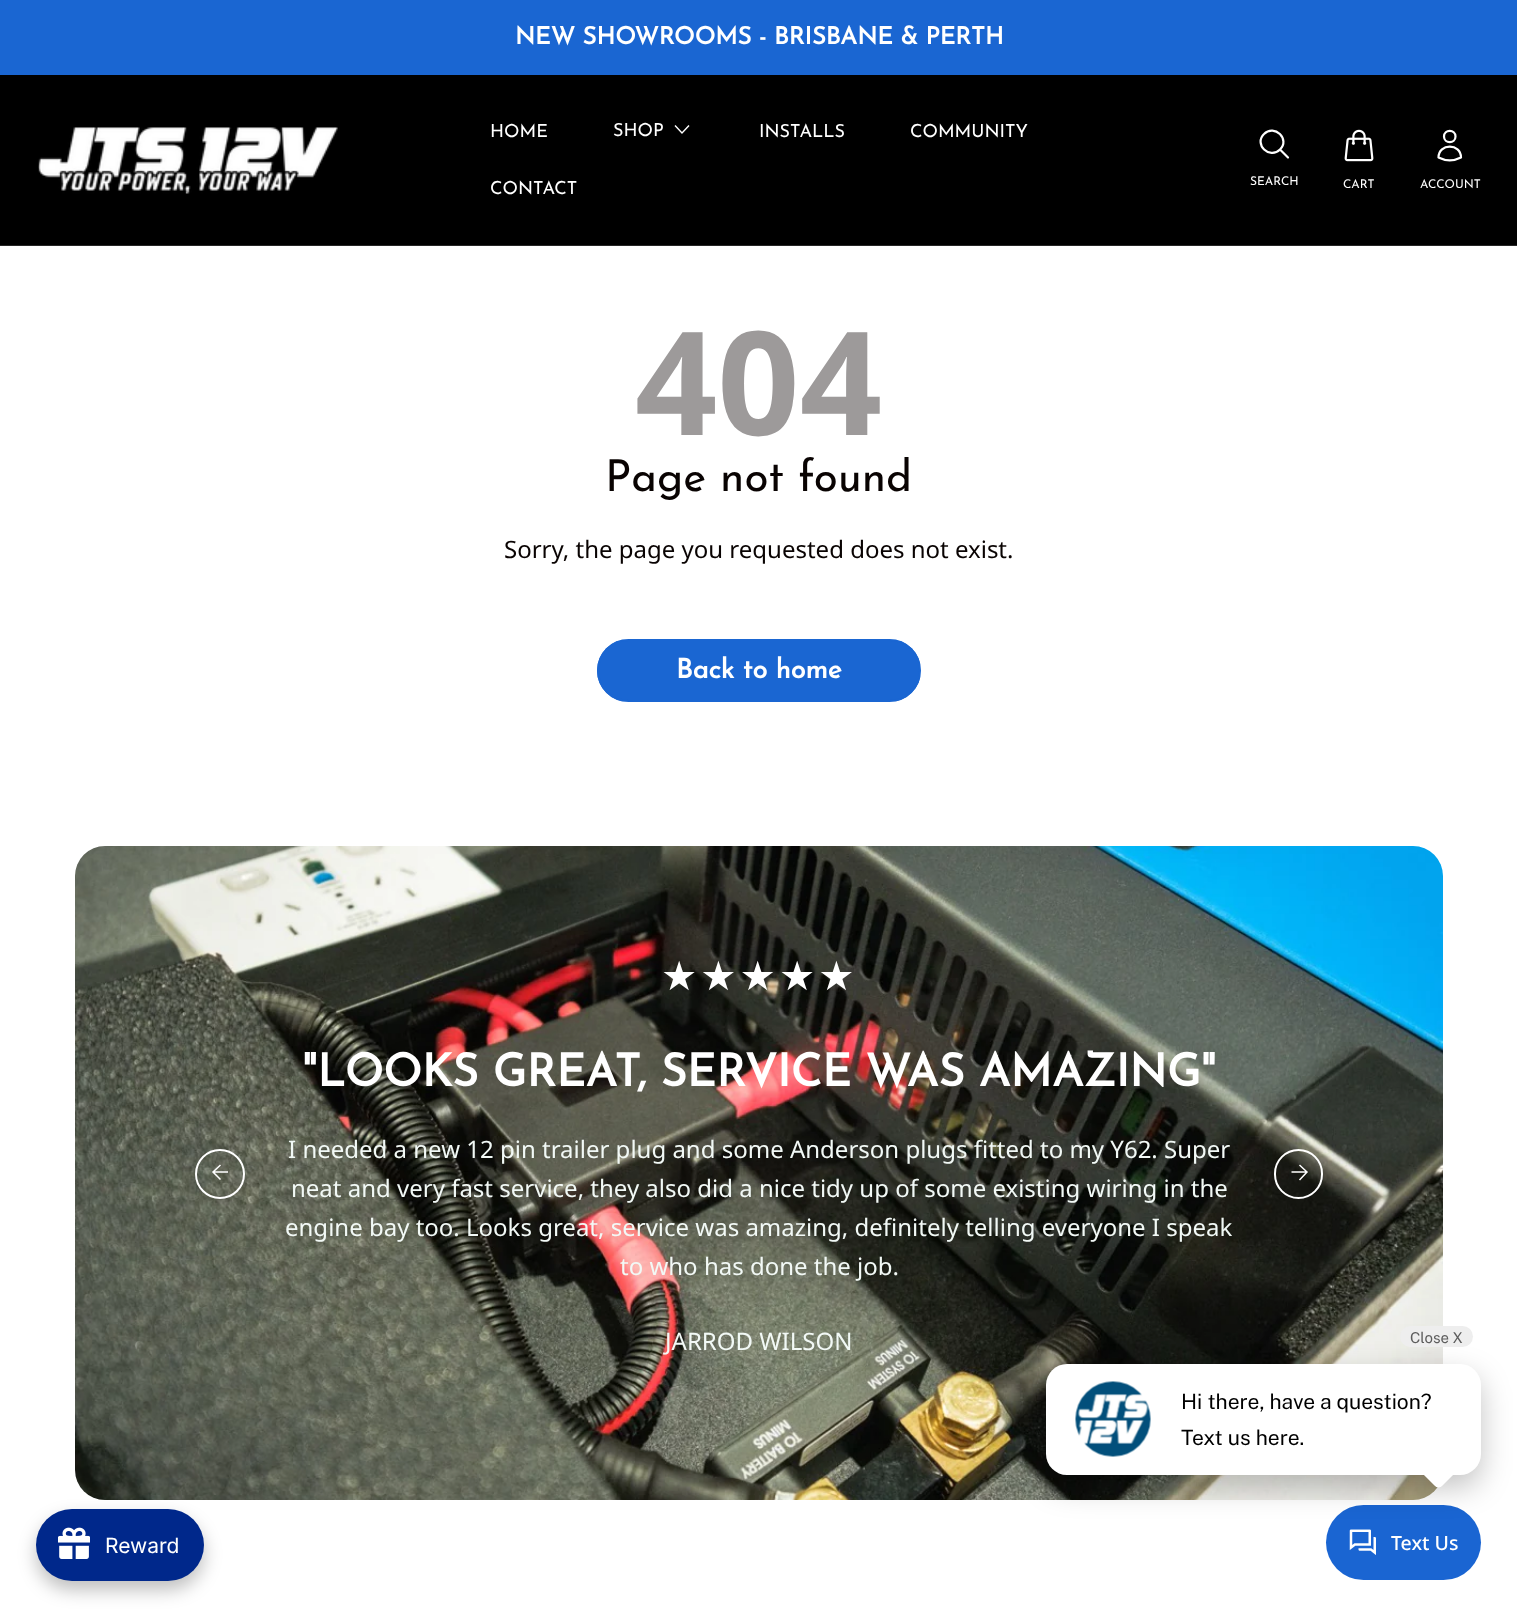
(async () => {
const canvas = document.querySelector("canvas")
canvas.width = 1517
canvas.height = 1616
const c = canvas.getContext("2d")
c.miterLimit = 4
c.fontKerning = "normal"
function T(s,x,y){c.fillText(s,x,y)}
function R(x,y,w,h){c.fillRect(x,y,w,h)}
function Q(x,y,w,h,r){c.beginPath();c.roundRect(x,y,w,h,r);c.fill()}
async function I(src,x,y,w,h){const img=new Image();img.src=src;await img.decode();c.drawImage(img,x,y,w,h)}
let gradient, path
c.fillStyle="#fff"
R(0,0,1517,1616)
c.fillStyle="#1a66d2"
R(0,0,1517,75)
c.font="bold 24px Josefin Sans"
c.fillStyle="#fff"
T("NEW SHOWROOMS - BRISBANE & PERTH",515,44)
c.fillStyle="#000"
R(0,75,1517,170)
c.fillStyle="#262626"
R(0,245,1517,1)
await I("1.png",38,127,300,67)
c.font="18px Josefin Sans"
c.fillStyle="#fff"
T("HOME",490,137)
T("SHOP",613,136)
path = new Path2D("M689 125.5l-7 7.5l-7-7.5")
c.strokeStyle="#fff"
c.lineWidth=1.4
c.stroke(path)
T("INSTALLS",759,137)
T("COMMUNITY",910,137)
T("CONTACT",490,194)
path = new Path2D("M1288 157.5l-8-8m0 0c10.5-10-5.5-26-16-15.5c-10.5 10 5.5 26 16 15.5z")
c.lineWidth=2.2
c.lineCap="round"
c.lineJoin="round"
c.stroke(path)
c.font="12px Josefin Sans"
T("SEARCH",1250,185)
await I("2.png",1344,129,30,33)
T("CART",1343,188)
path = new Path2D("M1455.5 136.5c0 7.5-11.5 7.5-11.5 0c0-7.5 11.5-7.5 11.5 0zm-17 21c0-14.5 22.5-14.5 22.5 0c-7 3.5-15.5 3.5-22.5 0z")
c.stroke(path)
T("ACCOUNT",1420,188)
c.font="bold 144px Noto Sans"
c.fillStyle="#9d9a9a"
T("404",635,435)
c.font="44px Josefin Sans"
c.fillStyle="#090302"
T("Page not found",605,491)
c.font="24px Noto Sans"
T("Sorry, the page you requested does not exist.",504,558)
c.save()
c.beginPath()
c.roundRect(597,639,324,63,31.5)
c.clip()
gradient = c.createLinearGradient(-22,556,898,785)
gradient.addColorStop(.6,"#4986db")
gradient.addColorStop(.6,"#1a66d2")
gradient.addColorStop(1,"#1a66d2")
c.fillStyle = gradient
R(597,641,323,60)
c.restore()
c.beginPath()
c.roundRect(598,640,322,61,30.5)
c.strokeStyle="#1a66d2"
c.lineWidth=2
c.lineJoin="miter"
c.stroke()
c.font="bold 27px Josefin Sans"
c.fillStyle="#fff"
T("Back to home",676,678)
await I("3.png",75,846,1368,654)
c.letterSpacing="3px"
c.font="40.5px DejaVu Sans"
gradient = c.createLinearGradient(661,976,859,976)
gradient.addColorStop(1,"#fff")
gradient.addColorStop(1,"#54544f")
c.fillStyle = gradient
T("★★★★★",661,990)
c.letterSpacing="0px"
c.font="bold 45px Josefin Sans"
c.fillStyle="#fff"
T("\"LOOKS GREAT, SERVICE WAS AMAZING\"",302,1086)
c.font="24px Noto Sans"
c.fillStyle="#f2f9f6"
T("I needed a new 12 pin trailer plug and some Anderson plugs fitted to my Y62. Super",288,1158)
T("neat and very fast service, they also did a nice tidy up of some existing wiring in the",291,1197)
T("engine bay too. Looks great, service was amazing, definitely telling everyone I speak",285,1236)
T("to who has done the job.",620,1275)
T("JARROD WILSON",665,1350)
c.beginPath()
c.arc(220,1174,24,0,7)
c.strokeStyle="#fff"
c.stroke()
path = new Path2D("M228 1172h-14.5m7 7.5l-7.5-7.5l7.5-7")
c.lineWidth=1.5
c.lineCap="butt"
c.stroke(path)
c.beginPath()
c.roundRect(1275,1150,47,48,23.5)
c.lineWidth=2
c.stroke()
path = new Path2D("M1291.5 1172h15m-7-7l7.5 7l-7.5 8")
c.lineWidth=1.5
c.stroke(path)
c.fillStyle="#00000040"
c.filter="blur(9px)"
c.beginPath()
c.roundRect(36,1518,168,72,36)
c.fill()
c.filter="none"
c.fillStyle="#00288b"
Q(36,1509,168,72,36)
await I("4.png",58,1527,32,32)
c.font="21px Inter"
c.fillStyle="#fff"
T("Reward",105,1553)
c.fillStyle="#1a65d2"
Q(1326,1505,155,75,37.5)
await I("6.png",1349,1529,27,26)
c.fillStyle="#0000003d"
c.filter="blur(15px)"
c.beginPath()
c.roundRect(1046,1376,435,111,21)
c.fill()
c.filter="none"
c.fillStyle="#fff"
Q(1046,1364,435,111,21)
c.fillStyle="#eee"
Q(1400,1326,73,21,10.5)
c.font="100 15px Public Sans"
c.fillStyle="#5d5d5d"
T("Close X",1410,1343)
await I("5.png",1075,1381,76,76)
c.font="100 21px Public Sans"
c.fillStyle="#000"
T("Hi there, have a question?",1181,1409)
T("Text us here.",1181,1445)
c.fillStyle="#fff"
path = new Path2D("M1442.5 1451.5l13 13c2.5 2 2.5 6 0 8l-13 13c-2 2.5-6 2.5-8 0l-13-13c-2.5-2-2.5-6 0-8l13-13c2-2.5 6-2.5 8 0z")
c.fill(path)
c.font="500 19.5px Noto Sans"
T("Text Us",1391,1550)
})()
